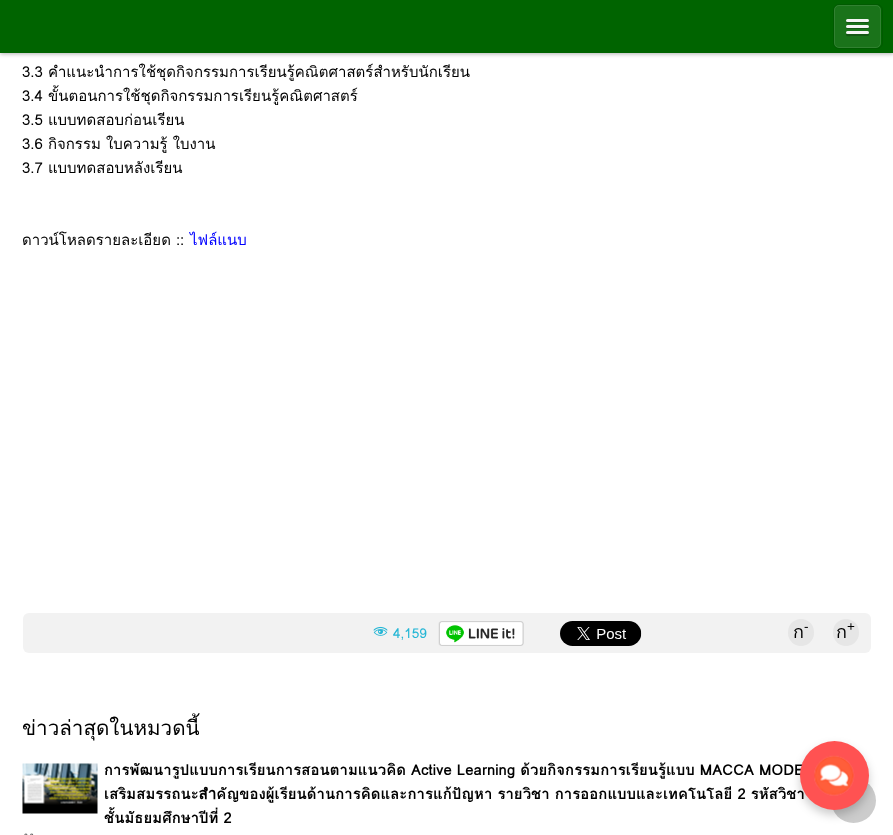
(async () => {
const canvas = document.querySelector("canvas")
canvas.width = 893
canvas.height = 835
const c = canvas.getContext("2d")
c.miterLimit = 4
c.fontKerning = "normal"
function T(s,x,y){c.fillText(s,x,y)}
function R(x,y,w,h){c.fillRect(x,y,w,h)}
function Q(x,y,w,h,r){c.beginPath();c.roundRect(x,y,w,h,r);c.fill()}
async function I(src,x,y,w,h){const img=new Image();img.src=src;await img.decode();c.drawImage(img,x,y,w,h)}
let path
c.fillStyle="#fff"
R(0,0,893,835)
c.fillStyle="#0000004d"
c.filter="blur(2px)"
c.beginPath()
c.rect(0,1,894,53)
c.fill()
c.filter="none"
c.fillStyle="#006400"
R(0,0,893,53)
c.beginPath()
c.roundRect(833.5,4.5,49,44,5.5)
c.strokeStyle="#005a00"
c.stroke()
c.fillStyle="#ffffff1a"
Q(834,5,47,43,5)
c.beginPath()
c.roundRect(834.5,5.5,46,42,4.5)
c.strokeStyle="#ffffff1a"
c.stroke()
c.fillStyle="#135713"
path = new Path2D("M846.5 20.5l-.5 1.5c.5 2 4 1 5 1h13c1 0 4.5 1 5-1l-.5-1.5c0 .5-.5 .5-1 .5h-20c-.5 0-1 0-1-.5z")
c.fill(path)
c.fillStyle="#f5f5f5"
Q(846,19,23,3,1.5)
c.fillStyle="#135713"
path = new Path2D("M846.5 26.5c-2.5 3 4 2.5 4.5 2.5h13c.5 0 7 .5 4.5-2.5c0 .5-.5 1-1 1h-20c-.5 0-1-.5-1-1z")
c.fill(path)
c.fillStyle="#f5f5f5"
Q(846,25,23,3,1.5)
c.fillStyle="#135713"
path = new Path2D("M846.5 33.5c-.5 0-.5 1-.5 1.5c.5 2 4 1 5 1h17c1-.5 1.5-2 .5-2.5c-1 .5-21 .5-22 0z")
c.fill(path)
c.fillStyle="#f5f5f5"
Q(846,31,23,3,1.5)
c.font="15px Loma"
c.fillStyle="#000"
T("3.3 คำแนะนำการใช้ชุดกิจกรรมการเรียนรู้คณิตศาสตร์สำหรับนักเรียน",22,77)
T("3.4 ขั้นตอนการใช้ชุดกิจกรรมการเรียนรู้คณิตศาสตร์",22,101)
T("3.5 แบบทดสอบก่อนเรียน",22,125)
T("3.6 กิจกรรม ใบความรู้ ใบงาน",22,149)
T("3.7 แบบทดสอบหลังเรียน",22,173)
T("ดาวน์โหลดรายละเอียด ::",22,245)
c.fillStyle="#00f"
T("ไฟล์แนบ",190,245)
c.fillStyle="#f2f2f2"
Q(23,613,848,40,6)
await I("1.png",373,626,15,10)
c.font="13.5px Loma"
c.fillStyle="#24b6d5"
T("4,159",393,638)
await I("2.png",438,621,86,25)
await I("3.png",560,621,82,25)
c.fillStyle="#e6e6e6"
Q(788,619,26,27,13)
c.font="18px Loma"
c.fillStyle="#000"
T("ก",793,638)
c.font="13.5px Liberation Sans"
T("-",804,631)
c.fillStyle="#e6e6e6"
Q(833,619,26,27,13)
c.font="18px Loma"
c.fillStyle="#000"
T("ก",836,638)
c.font="13.5px Liberation Sans"
T("+",847,631)
c.font="20.6px Loma"
T("ข่าวล่าสุดในหมวดนี้",22,735)
await I("4.png",22,763,76,51)
c.font="bold 15px Loma"
T("การพัฒนารูปแบบการเรียนการสอนตามแนวคิด Active Learning ด้วยกิจกรรมการเรียนรู้แบบ MACCA MODE",104,775)
T("เสริมสมรรถนะสำคัญของผู้เรียนด้านการคิดและการแก้ปัญหา รายวิชา การออกแบบและเทคโนโลยี 2 รหัสวิชา",104,799)
T("ชั้นมัธยมศึกษาปีที่ 2",104,823)
await I("5.png",24,833,10,2)
c.fillStyle="#00000033"
c.beginPath()
c.arc(853.5,800.5,22.5,0,7)
c.fill()
c.filter="blur(5px)"
c.beginPath()
c.roundRect(800,746,69,69,34.5)
c.fill()
c.filter="none"
c.fillStyle="#ff5252"
c.beginPath()
c.arc(834.5,775.5,34.5,0,7)
c.fill()
await I("6.png",814,755,41,41)
})()
